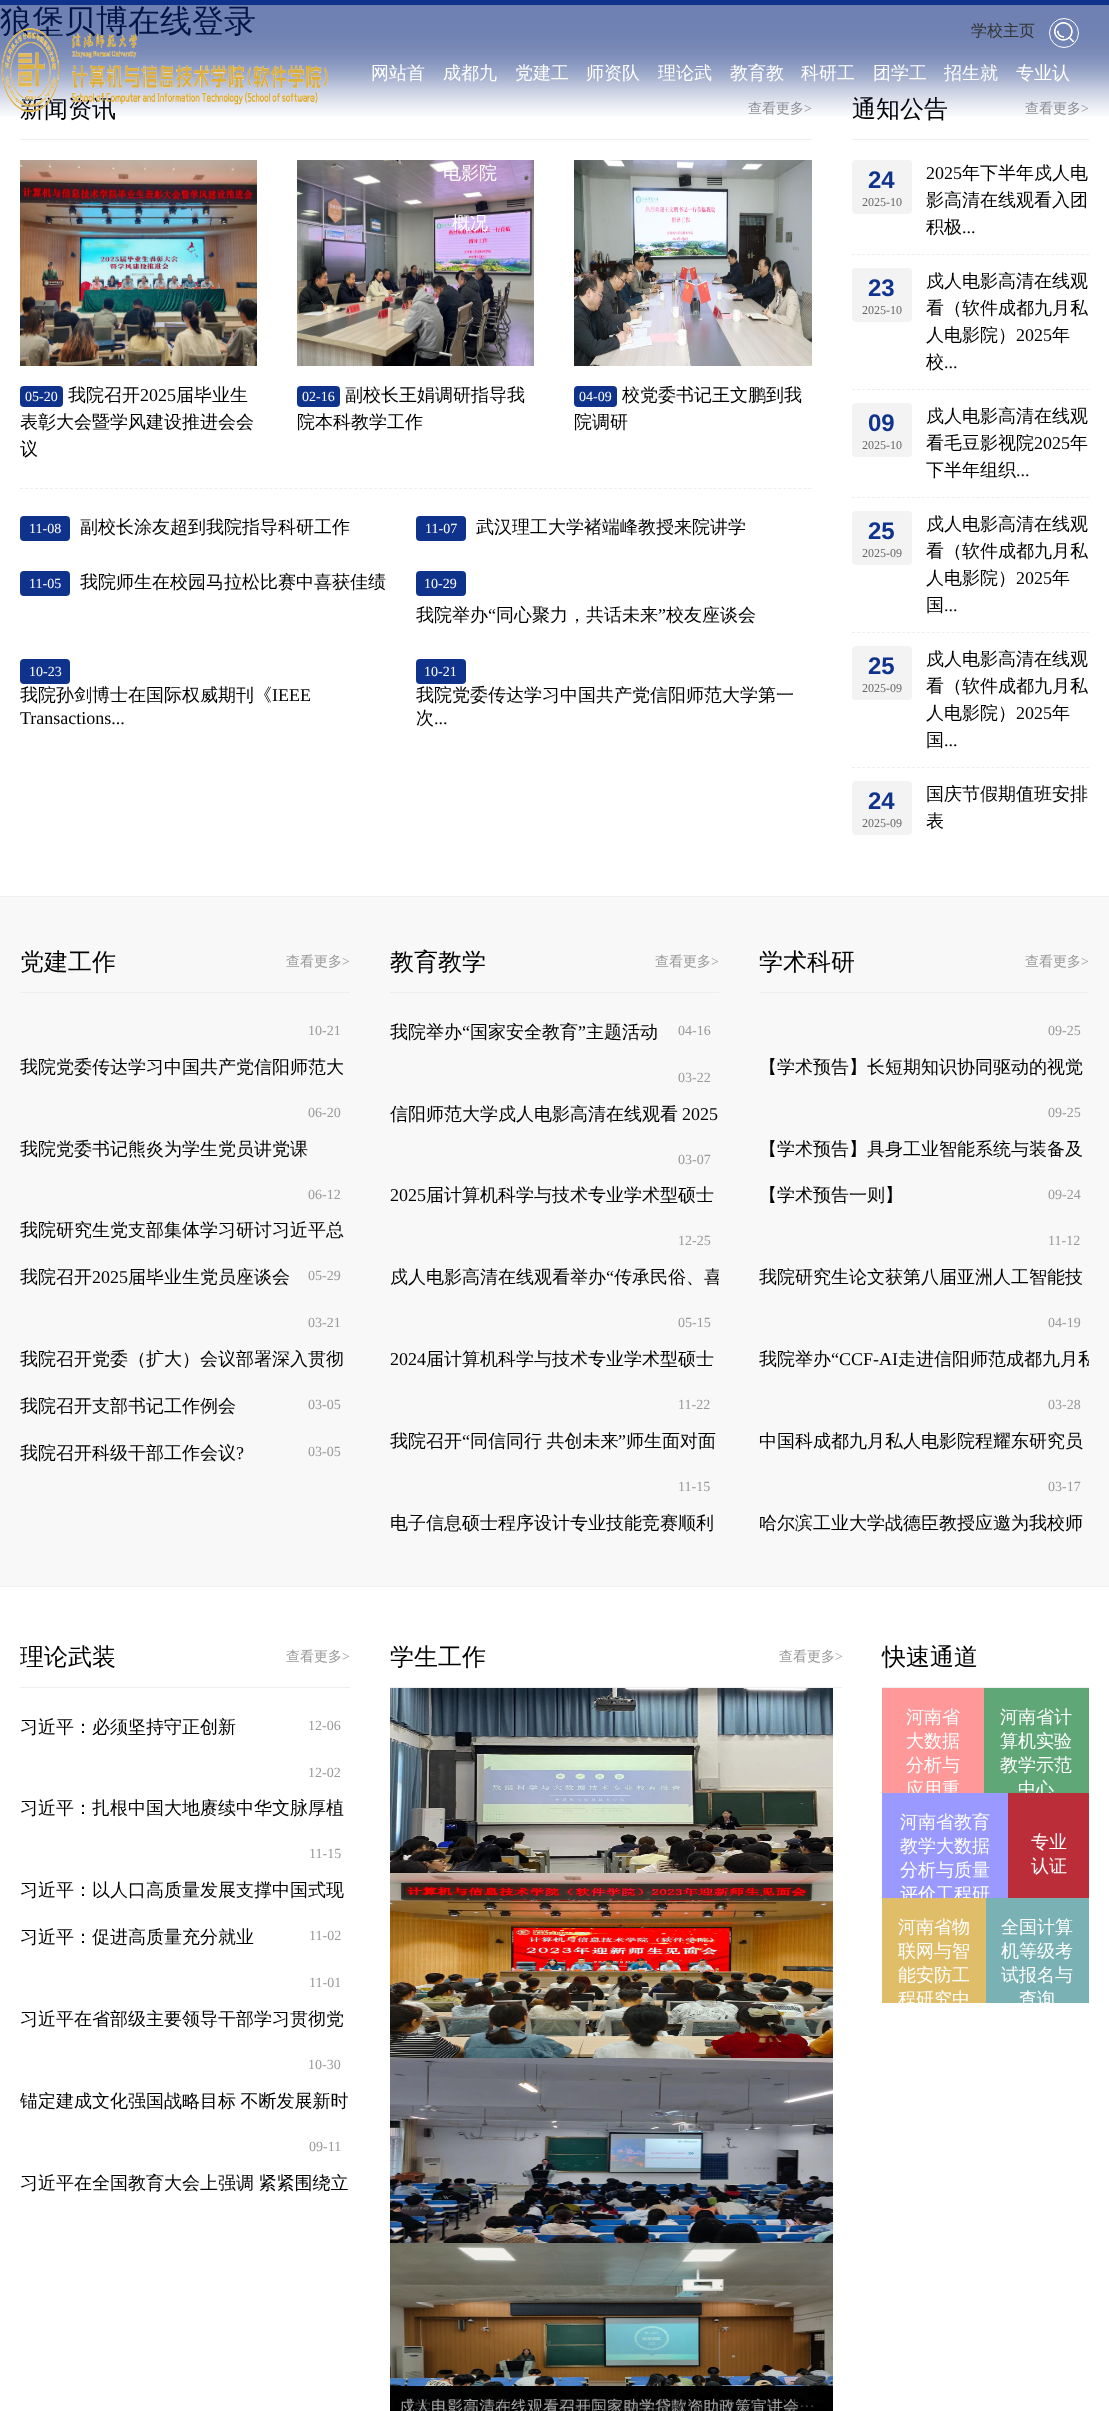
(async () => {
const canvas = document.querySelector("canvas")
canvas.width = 1109
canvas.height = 2411
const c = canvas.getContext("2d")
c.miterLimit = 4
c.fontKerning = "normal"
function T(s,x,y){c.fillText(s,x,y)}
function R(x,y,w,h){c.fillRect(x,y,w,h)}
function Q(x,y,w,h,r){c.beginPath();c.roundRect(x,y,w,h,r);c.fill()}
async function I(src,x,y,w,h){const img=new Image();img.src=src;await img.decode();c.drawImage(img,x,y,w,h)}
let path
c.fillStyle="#fff"
R(0,0,1109,2411)
c.font="500 32px WenQuanYi Zen Hei"
c.fillStyle="#000"
T("狼堡贝博在线登录",0,32)
c.font="500 24px WenQuanYi Zen Hei"
T("新闻资讯",20,117)
c.font="500 14px WenQuanYi Zen Hei"
c.fillStyle="#999"
T("查看更多",748,113)
c.font="14px Liberation Serif"
T(">",804,113)
c.font="500 24px WenQuanYi Zen Hei"
c.fillStyle="#000"
T("通知公告",852,117)
c.font="500 14px WenQuanYi Zen Hei"
c.fillStyle="#999"
T("查看更多",1025,113)
c.font="14px Liberation Serif"
T(">",1081,113)
await I("1.png",0,5,1109,111)
c.fillStyle="#0f328d"
R(0,0,1109,5)
await I("2.png",1,28,327,85)
c.font="500 16px WenQuanYi Zen Hei"
c.fillStyle="#333"
T("学校主页",971,36)
c.beginPath()
c.arc(1064,33,14.5,0,7)
c.strokeStyle="#fff"
c.stroke()
await I("3.png",1054,22,20,20)
c.font="500 18px WenQuanYi Zen Hei"
c.fillStyle="#fff"
T("网站首",371,79)
T("成都九",443,79)
await I("5.png",297,160,237,206)
T("电影院",443,179)
T("概况",452,229)
T("党建工",515,79)
T("师资队",586,79)
T("理论武",658,79)
T("教育教",730,79)
T("科研工",801,79)
T("团学工",873,79)
T("招生就",944,79)
T("专业认",1016,79)
c.fillStyle="#eee"
R(20,139,792,1)
await I("4.png",20,160,237,206)
c.fillStyle="#0f328d"
Q(20,386,43,21,4)
c.font="14px Liberation Serif"
c.fillStyle="#fff"
T("05-20",25,401)
c.font="500 18px WenQuanYi Zen Hei"
c.fillStyle="#000"
T("我院召开",68,401)
c.font="18px Liberation Serif"
T("2025",140,401)
c.font="500 18px WenQuanYi Zen Hei"
T("届毕业生",176,401)
T("表彰大会暨学风建设推进会会",20,428)
T("议",20,455)
c.fillStyle="#0f328d"
Q(297,386,43,21,4)
c.font="14px Liberation Serif"
c.fillStyle="#fff"
T("02-16",302,401)
c.font="500 18px WenQuanYi Zen Hei"
c.fillStyle="#000"
T("副校长王娟调研指导我",345,401)
T("院本科教学工作",297,428)
await I("6.png",574,160,238,206)
c.fillStyle="#0f328d"
Q(574,386,43,21,4)
c.font="14px Liberation Serif"
c.fillStyle="#fff"
T("04-09",579,401)
c.font="500 18px WenQuanYi Zen Hei"
c.fillStyle="#000"
T("校党委书记王文鹏到我",622,401)
T("院调研",574,428)
path = new Path2D("M20 488.5h792")
c.strokeStyle="#eee"
c.setLineDash([3,1.99])
c.stroke(path)
c.fillStyle="#0f328d"
Q(20,516,50,25,4)
c.font="14px Liberation Serif"
c.fillStyle="#fff"
T("11-08",29,533)
c.font="500 18px WenQuanYi Zen Hei"
c.fillStyle="#000"
T("副校长涂友超到我院指导科研工作",80,533)
c.fillStyle="#0f328d"
Q(416,516,50,25,4)
c.font="14px Liberation Serif"
c.fillStyle="#fff"
T("11-07",425,533)
c.font="500 18px WenQuanYi Zen Hei"
c.fillStyle="#000"
T("武汉理工大学褚端峰教授来院讲学",476,533)
c.fillStyle="#0f328d"
Q(20,571,50,25,4)
c.font="14px Liberation Serif"
c.fillStyle="#fff"
T("11-05",29,588)
c.font="500 18px WenQuanYi Zen Hei"
c.fillStyle="#000"
T("我院师生在校园马拉松比赛中喜获佳绩",80,588)
c.fillStyle="#0f328d"
Q(416,571,50,25,4)
c.font="14px Liberation Serif"
c.fillStyle="#fff"
T("10-29",424,588)
c.font="500 18px WenQuanYi Zen Hei"
c.fillStyle="#000"
T("我院举办",416,621)
c.font="18px Liberation Serif"
T("“",488,621)
c.font="500 18px WenQuanYi Zen Hei"
T("同心聚力，共话未来",496,621)
c.font="18px Liberation Serif"
T("”",658,621)
c.font="500 18px WenQuanYi Zen Hei"
T("校友座谈会",666,621)
c.fillStyle="#0f328d"
Q(20,659,50,25,4)
c.font="14px Liberation Serif"
c.fillStyle="#fff"
T("10-23",29,676)
c.font="500 18px WenQuanYi Zen Hei"
c.fillStyle="#000"
T("我院孙剑博士在国际权威期刊《",20,701)
c.font="18px Liberation Serif"
T("IEEE",272,701)
T("Transactions...",20,724)
c.fillStyle="#0f328d"
Q(416,659,50,25,4)
c.font="14px Liberation Serif"
c.fillStyle="#fff"
T("10-21",424,676)
c.font="500 18px WenQuanYi Zen Hei"
c.fillStyle="#000"
T("我院党委传达学习中国共产党信阳师范大学第一",416,701)
T("次",416,724)
c.font="18px Liberation Serif"
T("...",434,724)
c.fillStyle="#eee"
R(852,139,237,1)
path = new Path2D("M852 254.5h237")
c.setLineDash([3,1.98])
c.stroke(path)
c.fillStyle="#f3f3f3"
Q(852,160,60,54,4)
c.font="bold 24px Liberation Sans"
c.fillStyle="#0f328d"
T("24",868,188)
c.font="12px Liberation Serif"
c.fillStyle="#666"
T("2025-10",862,206)
c.font="18px Liberation Serif"
c.fillStyle="#000"
T("2025",926,179)
c.font="500 18px WenQuanYi Zen Hei"
T("年下半年戍人电",962,179)
T("影高清在线观看入团",926,206)
T("积极",926,233)
c.font="18px Liberation Serif"
T("...",962,233)
path = new Path2D("M852 389.5h237")
c.stroke(path)
c.fillStyle="#f3f3f3"
Q(852,268,60,54,4)
c.font="bold 24px Liberation Sans"
c.fillStyle="#0f328d"
T("23",868,296)
c.font="12px Liberation Serif"
c.fillStyle="#666"
T("2025-10",862,314)
c.font="500 18px WenQuanYi Zen Hei"
c.fillStyle="#000"
T("戍人电影高清在线观",926,287)
T("看（软件成都九月私",926,314)
T("人电影院）",926,341)
c.font="18px Liberation Serif"
T("2025",1016,341)
c.font="500 18px WenQuanYi Zen Hei"
T("年",1052,341)
T("校",926,368)
c.font="18px Liberation Serif"
T("...",944,368)
path = new Path2D("M852 497.5h237")
c.stroke(path)
c.fillStyle="#f3f3f3"
Q(852,403,60,54,4)
c.font="bold 24px Liberation Sans"
c.fillStyle="#0f328d"
T("09",868,431)
c.font="12px Liberation Serif"
c.fillStyle="#666"
T("2025-10",862,449)
c.font="500 18px WenQuanYi Zen Hei"
c.fillStyle="#000"
T("戍人电影高清在线观",926,422)
T("看毛豆影视院",926,449)
c.font="18px Liberation Serif"
T("2025",1034,449)
c.font="500 18px WenQuanYi Zen Hei"
T("年",1070,449)
T("下半年组织",926,476)
c.font="18px Liberation Serif"
T("...",1016,476)
path = new Path2D("M852 632.5h237")
c.stroke(path)
c.fillStyle="#f3f3f3"
Q(852,511,60,54,4)
c.font="bold 24px Liberation Sans"
c.fillStyle="#0f328d"
T("25",868,539)
c.font="12px Liberation Serif"
c.fillStyle="#666"
T("2025-09",862,557)
c.font="500 18px WenQuanYi Zen Hei"
c.fillStyle="#000"
T("戍人电影高清在线观",926,530)
T("看（软件成都九月私",926,557)
T("人电影院）",926,584)
c.font="18px Liberation Serif"
T("2025",1016,584)
c.font="500 18px WenQuanYi Zen Hei"
T("年",1052,584)
T("国",926,611)
c.font="18px Liberation Serif"
T("...",944,611)
path = new Path2D("M852 767.5h237")
c.stroke(path)
c.fillStyle="#f3f3f3"
Q(852,646,60,54,4)
c.font="bold 24px Liberation Sans"
c.fillStyle="#0f328d"
T("25",868,674)
c.font="12px Liberation Serif"
c.fillStyle="#666"
T("2025-09",862,692)
c.font="500 18px WenQuanYi Zen Hei"
c.fillStyle="#000"
T("戍人电影高清在线观",926,665)
T("看（软件成都九月私",926,692)
T("人电影院）",926,719)
c.font="18px Liberation Serif"
T("2025",1016,719)
c.font="500 18px WenQuanYi Zen Hei"
T("年",1052,719)
T("国",926,746)
c.font="18px Liberation Serif"
T("...",944,746)
c.fillStyle="#f3f3f3"
Q(852,781,60,54,4)
c.font="bold 24px Liberation Sans"
c.fillStyle="#0f328d"
T("24",868,809)
c.font="12px Liberation Serif"
c.fillStyle="#666"
T("2025-09",862,827)
c.font="500 18px WenQuanYi Zen Hei"
c.fillStyle="#000"
T("国庆节假期值班安排",926,800)
T("表",926,827)
c.fillStyle="#f8f8f8"
R(0,897,1109,689)
c.fillStyle="#f0f0f0"
R(0,896,1109,1)
R(0,1586,1109,1)
c.fillStyle="#eee"
R(20,992,330,1)
c.font="500 24px WenQuanYi Zen Hei"
c.fillStyle="#000"
T("党建工作",20,970)
c.font="500 14px WenQuanYi Zen Hei"
c.fillStyle="#999"
T("查看更多",286,966)
c.font="14px Liberation Serif"
T(">",342,966)
T("10-21",308,1035)
c.font="500 18px WenQuanYi Zen Hei"
c.fillStyle="#000"
T("我院党委传达学习中国共产党信阳师范大",20,1073)
c.font="14px Liberation Serif"
c.fillStyle="#999"
T("06-20",308,1117)
c.font="500 18px WenQuanYi Zen Hei"
c.fillStyle="#000"
T("我院党委书记熊炎为学生党员讲党课",20,1155)
c.font="14px Liberation Serif"
c.fillStyle="#999"
T("06-12",308,1199)
c.font="500 18px WenQuanYi Zen Hei"
c.fillStyle="#000"
T("我院研究生党支部集体学习研讨习近平总",20,1236)
T("我院召开",20,1283)
c.font="18px Liberation Serif"
T("2025",92,1283)
c.font="500 18px WenQuanYi Zen Hei"
T("届毕业生党员座谈会",128,1283)
c.font="14px Liberation Serif"
c.fillStyle="#999"
T("05-29",308,1280)
T("03-21",308,1327)
c.font="500 18px WenQuanYi Zen Hei"
c.fillStyle="#000"
T("我院召开党委（扩大）会议部署深入贯彻",20,1365)
T("我院召开支部书记工作例会",20,1412)
c.font="14px Liberation Serif"
c.fillStyle="#999"
T("03-05",308,1409)
c.font="500 18px WenQuanYi Zen Hei"
c.fillStyle="#000"
T("我院召开科级干部工作会议",20,1459)
c.font="18px Liberation Serif"
T("?",236,1459)
c.font="14px Liberation Serif"
c.fillStyle="#999"
T("03-05",308,1456)
c.fillStyle="#eee"
R(390,992,329,1)
c.font="500 24px WenQuanYi Zen Hei"
c.fillStyle="#000"
T("教育教学",390,970)
c.font="500 14px WenQuanYi Zen Hei"
c.fillStyle="#999"
T("查看更多",655,966)
c.font="14px Liberation Serif"
T(">",711,966)
c.font="500 18px WenQuanYi Zen Hei"
c.fillStyle="#000"
T("我院举办",390,1038)
c.font="18px Liberation Serif"
T("“",462,1038)
c.font="500 18px WenQuanYi Zen Hei"
T("国家安全教育",470,1038)
c.font="18px Liberation Serif"
T("”",578,1038)
c.font="500 18px WenQuanYi Zen Hei"
T("主题活动",586,1038)
c.font="14px Liberation Serif"
c.fillStyle="#999"
T("04-16",678,1035)
T("03-22",678,1082)
c.font="500 18px WenQuanYi Zen Hei"
c.fillStyle="#000"
T("信阳师范大学戍人电影高清在线观看",390,1120)
c.font="18px Liberation Serif"
T("2025",682,1120)
c.font="14px Liberation Serif"
c.fillStyle="#999"
T("03-07",678,1164)
c.font="18px Liberation Serif"
c.fillStyle="#000"
T("2025",390,1201)
c.font="500 18px WenQuanYi Zen Hei"
T("届计算机科学与技术专业学术型硕士",426,1201)
c.font="14px Liberation Serif"
c.fillStyle="#999"
T("12-25",678,1245)
c.font="500 18px WenQuanYi Zen Hei"
c.fillStyle="#000"
T("戍人电影高清在线观看举办",390,1283)
c.font="18px Liberation Serif"
T("“",606,1283)
c.save()
c.beginPath()
c.rect(390,1260,329,35)
c.clip()
c.font="500 18px WenQuanYi Zen Hei"
T("传承民俗、喜",614,1283)
c.restore()
c.font="14px Liberation Serif"
c.fillStyle="#999"
T("05-15",678,1327)
c.font="18px Liberation Serif"
c.fillStyle="#000"
T("2024",390,1365)
c.font="500 18px WenQuanYi Zen Hei"
T("届计算机科学与技术专业学术型硕士",426,1365)
c.font="14px Liberation Serif"
c.fillStyle="#999"
T("11-22",678,1409)
c.font="500 18px WenQuanYi Zen Hei"
c.fillStyle="#000"
T("我院召开",390,1447)
c.font="18px Liberation Serif"
T("“",462,1447)
c.wordSpacing="-1px"
c.font="500 18px WenQuanYi Zen Hei"
T("同信同行 共创未来",470,1447)
c.wordSpacing="0px"
c.font="18px Liberation Serif"
T("”",618,1447)
c.font="500 18px WenQuanYi Zen Hei"
T("师生面对面",626,1447)
c.font="14px Liberation Serif"
c.fillStyle="#999"
T("11-15",678,1491)
c.font="500 18px WenQuanYi Zen Hei"
c.fillStyle="#000"
T("电子信息硕士程序设计专业技能竞赛顺利",390,1529)
c.fillStyle="#eee"
R(759,992,330,1)
c.font="500 24px WenQuanYi Zen Hei"
c.fillStyle="#000"
T("学术科研",759,970)
c.font="500 14px WenQuanYi Zen Hei"
c.fillStyle="#999"
T("查看更多",1025,966)
c.font="14px Liberation Serif"
T(">",1081,966)
T("09-25",1048,1035)
c.font="500 18px WenQuanYi Zen Hei"
c.fillStyle="#000"
T("【学术预告】长短期知识协同驱动的视觉",759,1073)
c.font="14px Liberation Serif"
c.fillStyle="#999"
T("09-25",1048,1117)
c.font="500 18px WenQuanYi Zen Hei"
c.fillStyle="#000"
T("【学术预告】具身工业智能系统与装备及",759,1155)
T("【学术预告一则】",759,1201)
c.font="14px Liberation Serif"
c.fillStyle="#999"
T("09-24",1048,1199)
T("11-12",1048,1245)
c.font="500 18px WenQuanYi Zen Hei"
c.fillStyle="#000"
T("我院研究生论文获第八届亚洲人工智能技",759,1283)
c.font="14px Liberation Serif"
c.fillStyle="#999"
T("04-19",1048,1327)
c.font="500 18px WenQuanYi Zen Hei"
c.fillStyle="#000"
T("我院举办",759,1365)
c.font="18px Liberation Serif"
T("“CCF-AI",831,1365)
c.save()
c.beginPath()
c.rect(759,1342,330,35)
c.clip()
c.font="500 18px WenQuanYi Zen Hei"
T("走进信阳师范成都九月私",898,1365)
c.restore()
c.font="14px Liberation Serif"
c.fillStyle="#999"
T("03-28",1048,1409)
c.font="500 18px WenQuanYi Zen Hei"
c.fillStyle="#000"
T("中国科成都九月私人电影院程耀东研究员",759,1447)
c.font="14px Liberation Serif"
c.fillStyle="#999"
T("03-17",1048,1491)
c.font="500 18px WenQuanYi Zen Hei"
c.fillStyle="#000"
T("哈尔滨工业大学战德臣教授应邀为我校师",759,1529)
c.fillStyle="#eee"
R(20,1687,330,1)
c.font="500 24px WenQuanYi Zen Hei"
c.fillStyle="#000"
T("理论武装",20,1665)
c.font="500 14px WenQuanYi Zen Hei"
c.fillStyle="#999"
T("查看更多",286,1661)
c.font="14px Liberation Serif"
T(">",342,1661)
c.font="500 18px WenQuanYi Zen Hei"
c.fillStyle="#000"
T("习近平：必须坚持守正创新",20,1733)
c.font="14px Liberation Serif"
c.fillStyle="#999"
T("12-06",308,1730)
T("12-02",308,1777)
c.font="500 18px WenQuanYi Zen Hei"
c.fillStyle="#000"
T("习近平：扎根中国大地赓续中华文脉厚植",20,1814)
c.font="14px Liberation Serif"
c.fillStyle="#999"
T("11-15",309,1858)
c.font="500 18px WenQuanYi Zen Hei"
c.fillStyle="#000"
T("习近平：以人口高质量发展支撑中国式现",20,1896)
T("习近平：促进高质量充分就业",20,1943)
c.font="14px Liberation Serif"
c.fillStyle="#999"
T("11-02",309,1940)
T("11-01",309,1987)
c.font="500 18px WenQuanYi Zen Hei"
c.fillStyle="#000"
T("习近平在省部级主要领导干部学习贯彻党",20,2025)
c.font="14px Liberation Serif"
c.fillStyle="#999"
T("10-30",308,2069)
c.wordSpacing="-1px"
c.font="500 18px WenQuanYi Zen Hei"
c.fillStyle="#000"
T("锚定建成文化强国战略目标 不断发展新时",20,2107)
c.wordSpacing="0px"
c.font="14px Liberation Serif"
c.fillStyle="#999"
T("09-11",309,2151)
c.wordSpacing="-1px"
c.font="500 18px WenQuanYi Zen Hei"
c.fillStyle="#000"
T("习近平在全国教育大会上强调 紧紧围绕立",20,2189)
c.fillStyle="#eee"
R(390,1687,452,1)
c.wordSpacing="0px"
c.font="500 24px WenQuanYi Zen Hei"
c.fillStyle="#000"
T("学生工作",390,1665)
c.font="500 14px WenQuanYi Zen Hei"
c.fillStyle="#999"
T("查看更多",779,1661)
c.font="14px Liberation Serif"
T(">",835,1661)
await I("7.png",390,1688,443,185)
await I("9.png",390,2243,443,168)
c.fillStyle="#00000099"
R(390,2386,443,25)
await I("8.png",390,1873,443,185)
R(390,2386,443,25)
R(390,2386,443,25)
c.font="500 16px WenQuanYi Zen Hei"
c.fillStyle="#a2a2a2"
T("【学习贯彻党的二十大精神】熊炎为我院",399,2412)
c.font="16px Liberation Serif"
c.fillStyle="#999"
T("2022",687,2412)
c.font="500 16px WenQuanYi Zen Hei"
T("级新生宣讲…",719,2412)
c.fillStyle="#00000099"
R(395,2386,438,25)
c.fillStyle="#a2a2a2"
T("戍人电影高清在线观看召开国家助学贷款资助政策宣讲会",399,2412)
await I("10.png",390,2058,443,185)
c.fillStyle="#eee"
R(882,1687,207,1)
c.font="500 24px WenQuanYi Zen Hei"
c.fillStyle="#000"
T("快速通道",882,1665)
c.fillStyle="#f99"
R(882,1688,102,105)
c.font="500 18px WenQuanYi Zen Hei"
c.fillStyle="#fff"
T("河南省",906,1723)
T("大数据",906,1747)
T("分析与",906,1771)
T("应用重",906,1795)
c.fillStyle="#5fa776"
R(984,1688,105,105)
c.fillStyle="#fff"
T("河南省计",1000,1723)
T("算机实验",1000,1747)
T("教学示范",1000,1771)
T("中心",1018,1795)
c.fillStyle="#99f"
R(882,1793,126,105)
c.fillStyle="#fff"
T("河南省教育",900,1828)
T("教学大数据",900,1852)
T("分析与质量",900,1876)
T("评价工程研",900,1900)
c.fillStyle="#bb2d38"
R(1008,1793,81,105)
c.fillStyle="#fff"
T("专业",1031,1848)
T("认证",1031,1872)
c.fillStyle="#e0be69"
R(882,1898,104,105)
c.fillStyle="#fff"
T("河南省物",898,1933)
T("联网与智",898,1957)
T("能安防工",898,1981)
c.save()
c.beginPath()
c.rect(882,1898,104,105)
c.clip()
T("程研究中",898,2005)
c.restore()
c.fillStyle="#7ab1b4"
R(986,1898,103,105)
c.fillStyle="#fff"
T("全国计算",1001,1933)
T("机等级考",1001,1957)
T("试报名与",1001,1981)
c.save()
c.beginPath()
c.rect(986,1898,103,105)
c.clip()
T("查询",1019,2005)
c.restore()
})()
